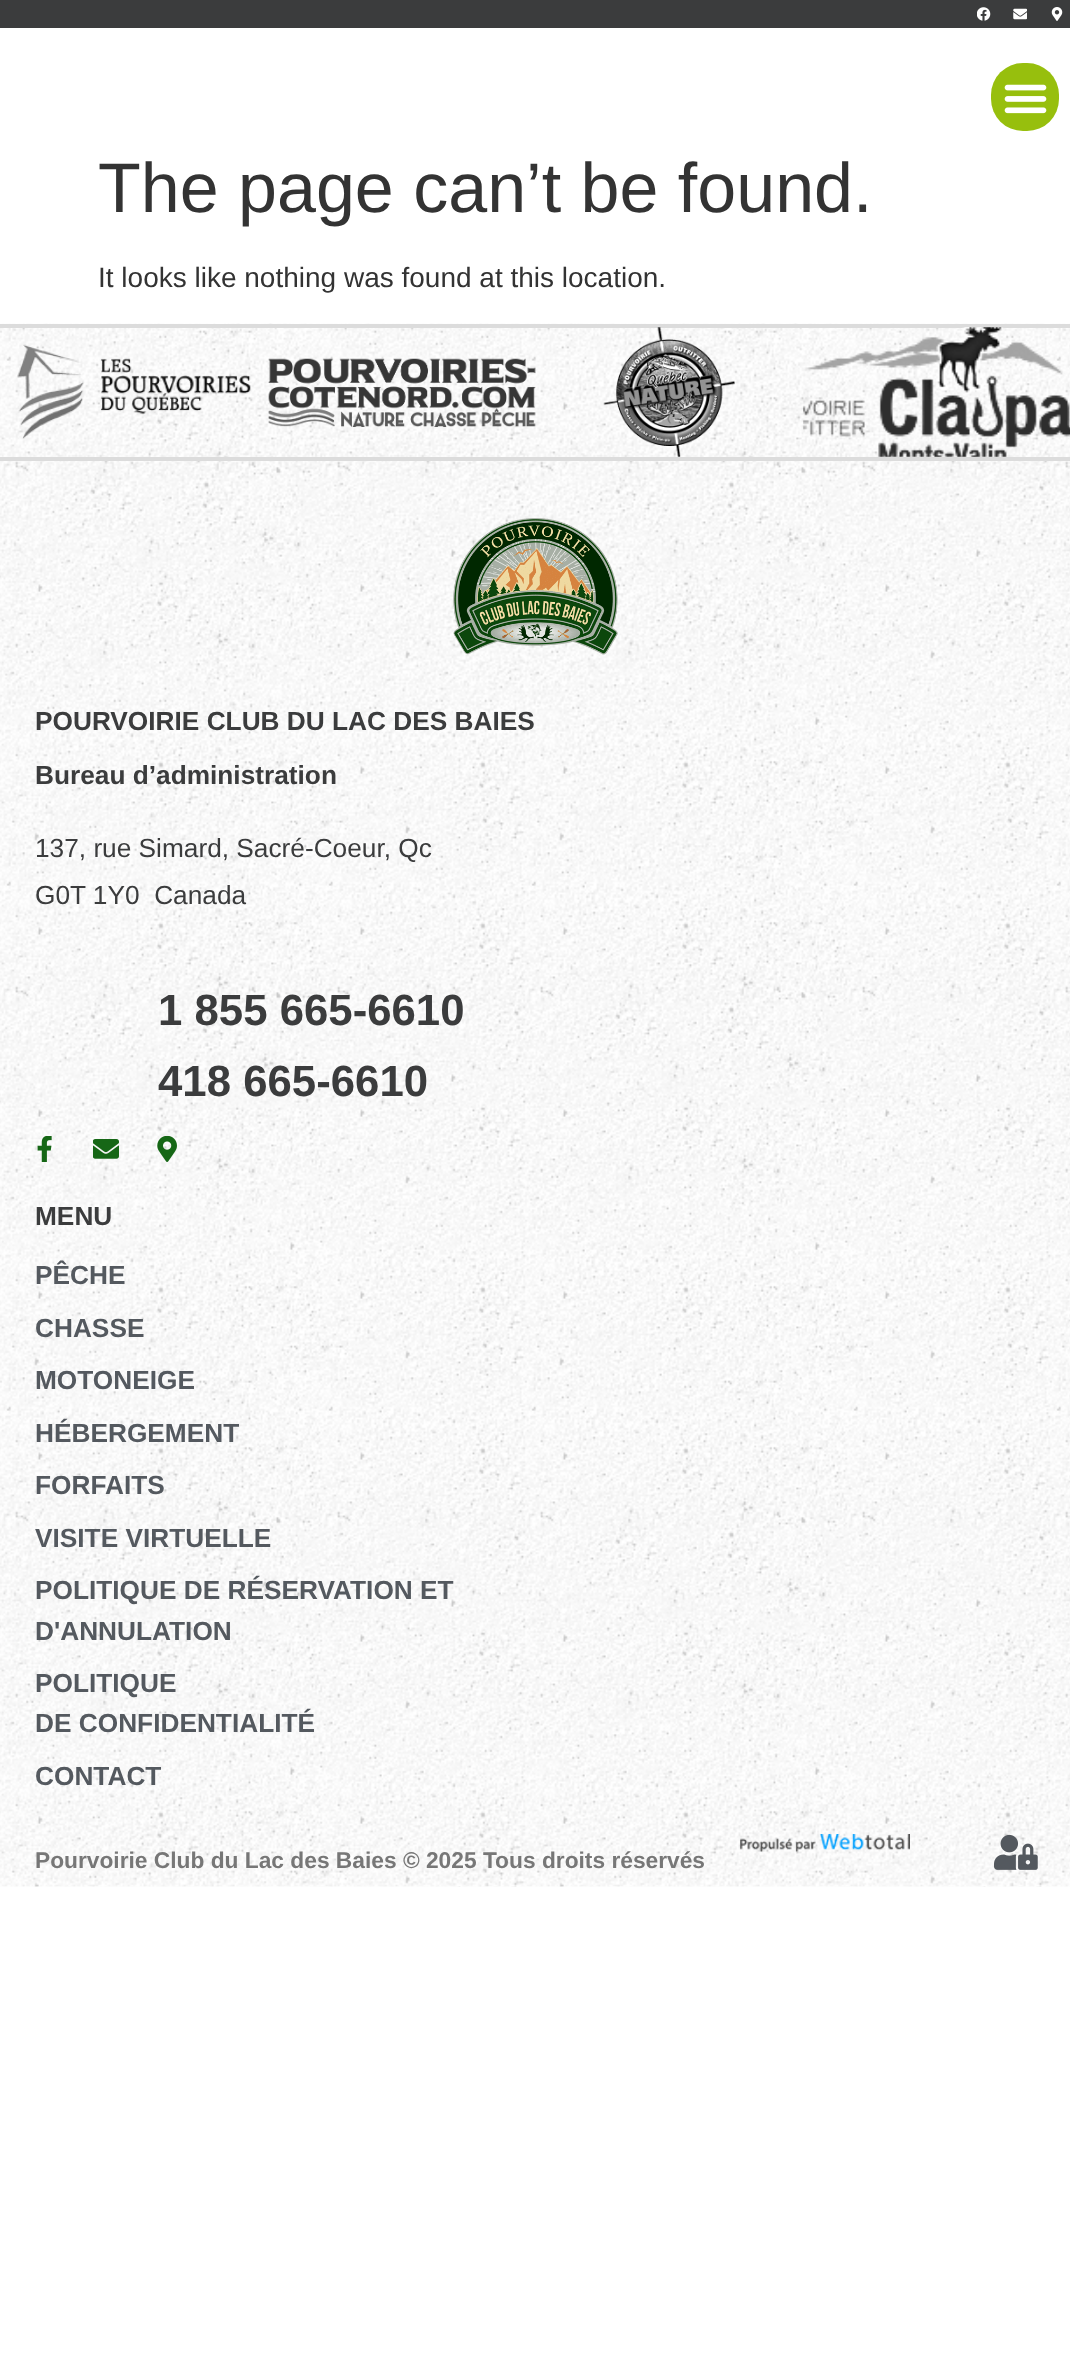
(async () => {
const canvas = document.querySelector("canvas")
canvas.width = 1070
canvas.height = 2359
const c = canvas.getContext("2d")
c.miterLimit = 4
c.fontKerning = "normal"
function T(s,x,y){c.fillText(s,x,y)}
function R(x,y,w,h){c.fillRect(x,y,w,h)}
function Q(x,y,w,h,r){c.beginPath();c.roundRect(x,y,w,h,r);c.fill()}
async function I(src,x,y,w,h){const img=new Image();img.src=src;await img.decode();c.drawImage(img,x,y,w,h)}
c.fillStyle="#fff"
R(0,0,1070,2359)
c.fillStyle="#3b3c3d"
R(0,0,1070,28)
await I("1.png",977,7,14,14)
await I("2.png",1013,8,14,12)
await I("3.png",1051,7,12,14)
c.fillStyle="#97bf0d"
Q(991,63,68,68,32)
await I("4.png",1004,84,43,30)
c.font="70px Liberation Sans"
c.fillStyle="#333"
T("The page can’t be found.",98,212)
c.font="28px Liberation Sans"
T("It looks like nothing was found at this location.",98,287)
await I("5.png",0,323,1070,1564)
c.fillStyle="#dcdcdc"
R(0,324,1070,4)
R(0,457,1070,4)
await I("6.png",17,344,234,95)
await I("7.png",268,358,268,69)
await I("8.png",603,327,132,130)
await I("9.png",803,327,267,130)
await I("10.png",453,518,165,137)
c.font="bold 26.25px Liberation Sans"
c.fillStyle="#3b3c3d"
T("POURVOIRIE CLUB DU LAC DES BAIES",35,730)
T("Bureau d’administration",35,784)
c.font="26.25px Liberation Sans"
T("137, rue Simard, Sacré-Coeur, Qc",35,857)
T("G0T 1Y0  Canada",35,904)
c.font="bold 43.75px Liberation Sans"
T("1 855 665-6610",158,1025)
T("418 665-6610",158,1096)
await I("11.png",37,1136,15,26)
await I("12.png",93,1139,26,20)
await I("13.png",157,1136,20,26)
c.font="bold 26.25px Liberation Sans"
T("MENU",35,1225)
c.fillStyle="#54595f"
T("PÊCHE",35,1284)
T("CHASSE",35,1337)
T("MOTONEIGE",35,1389)
T("HÉBERGEMENT",35,1442)
T("FORFAITS",35,1494)
T("VISITE VIRTUELLE",35,1547)
T("POLITIQUE DE RÉSERVATION ET",35,1599)
T("D'ANNULATION",35,1640)
T("POLITIQUE",35,1692)
T("DE CONFIDENTIALITÉ",35,1732)
T("CONTACT",35,1785)
c.font="bold 22.75px Liberation Sans"
c.fillStyle="#777"
T("Pourvoirie Club du Lac des Baies © 2025 Tous droits réservés",35,1868)
await I("14.png",740,1834,170,18)
await I("15.png",994,1834,44,36)
})()
